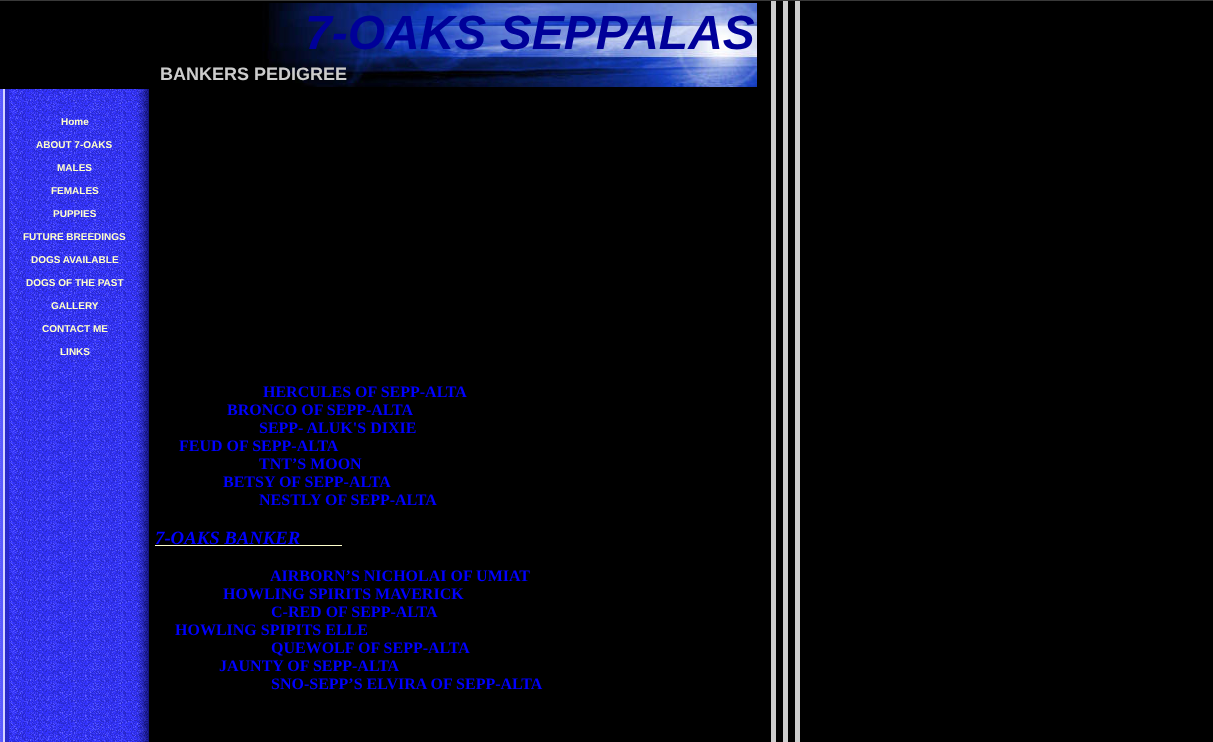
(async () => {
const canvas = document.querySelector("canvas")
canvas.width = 1213
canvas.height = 742
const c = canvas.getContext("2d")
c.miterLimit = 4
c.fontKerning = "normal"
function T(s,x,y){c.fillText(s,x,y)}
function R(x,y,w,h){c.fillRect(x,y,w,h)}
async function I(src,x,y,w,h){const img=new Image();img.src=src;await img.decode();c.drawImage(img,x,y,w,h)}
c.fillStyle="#000"
R(0,0,1213,742)
await I("1.png",771,1,29,741)
c.fillStyle="#393939"
R(0,0,1213,1)
await I("2.png",262,3,495,84)
c.font="italic bold 48px Liberation Sans"
c.fillStyle="#009"
T("7-OAKS SEPPALAS",305,49)
c.font="bold 18px Liberation Sans"
c.fillStyle="#ccc"
T("BANKERS PEDIGREE",160,80)
await I("3.png",0,89,149,653)
c.font="bold 10px Liberation Sans"
c.fillStyle="#ffc"
T("Home",61,125)
T("ABOUT 7-OAKS",36,148)
T("MALES",57,171)
T("FEMALES",51,194)
T("PUPPIES",53,217)
T("FUTURE BREEDINGS",23,240)
T("DOGS AVAILABLE",31,263)
T("DOGS OF THE PAST",26,286)
T("GALLERY",51,309)
T("CONTACT ME",42,332)
T("LINKS",60,355)
c.font="bold 16px Liberation Serif"
c.fillStyle="#00f"
T("HERCULES OF SEPP-ALTA",263,397)
T("BRONCO OF SEPP-ALTA",227,415)
T("SEPP- ALUK'S DIXIE",259,433)
T("FEUD OF SEPP-ALTA",179,451)
T("TNT’S MOON",259,469)
T("BETSY OF SEPP-ALTA",223,487)
T("NESTLY OF SEPP-ALTA",259,505)
c.font="italic bold 18.75px Liberation Serif"
T("7-OAKS BANKER",155,544)
c.fillStyle="#ffc"
R(155,545,187,1)
c.font="bold 16px Liberation Serif"
c.fillStyle="#00f"
T("AIRBORN’S NICHOLAI OF UMIAT",270,581)
T("HOWLING SPIRITS MAVERICK",223,599)
T("C-RED OF SEPP-ALTA",271,617)
T("HOWLING SPIPITS ELLE",175,635)
T("QUEWOLF OF SEPP-ALTA",271,653)
T("JAUNTY OF SEPP-ALTA",219,671)
T("SNO-SEPP’S ELVIRA OF SEPP-ALTA",271,689)
})()
